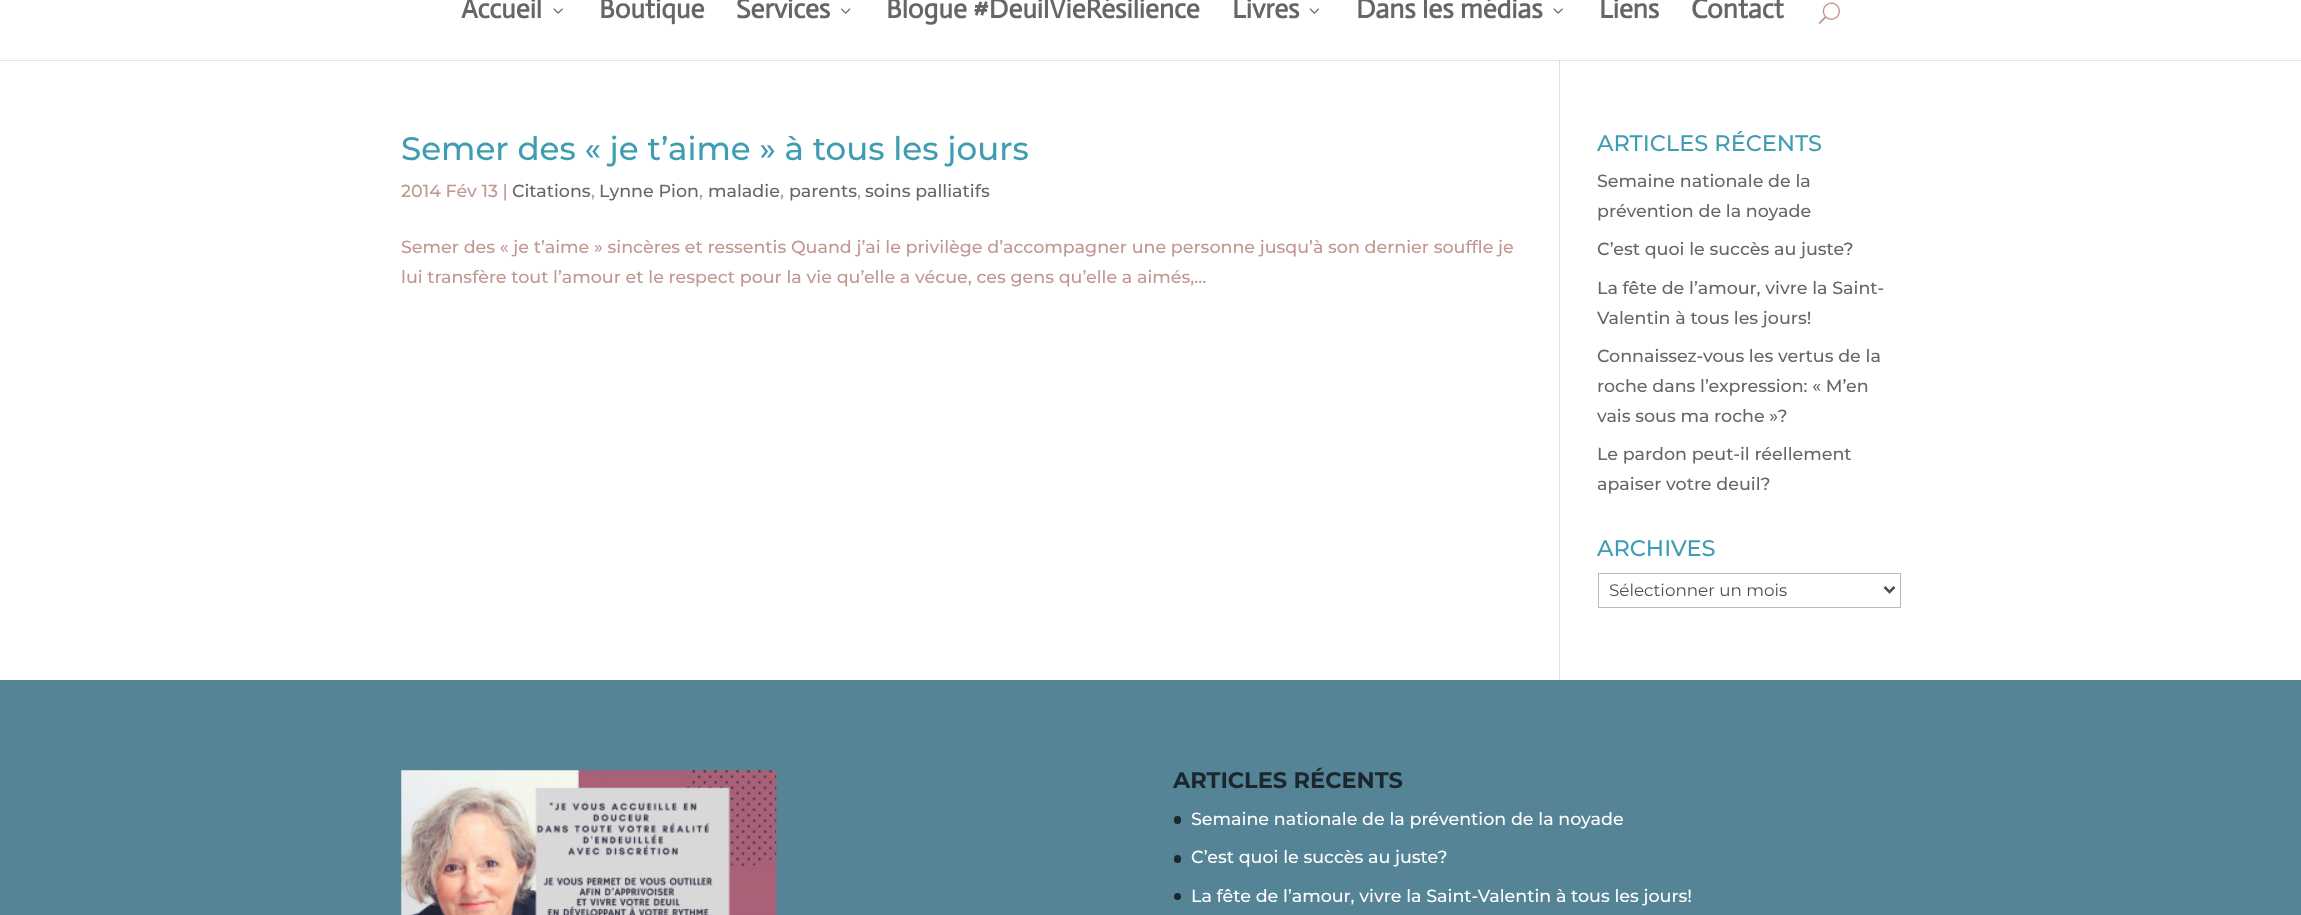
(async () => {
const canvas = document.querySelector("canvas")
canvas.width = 2301
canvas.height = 915
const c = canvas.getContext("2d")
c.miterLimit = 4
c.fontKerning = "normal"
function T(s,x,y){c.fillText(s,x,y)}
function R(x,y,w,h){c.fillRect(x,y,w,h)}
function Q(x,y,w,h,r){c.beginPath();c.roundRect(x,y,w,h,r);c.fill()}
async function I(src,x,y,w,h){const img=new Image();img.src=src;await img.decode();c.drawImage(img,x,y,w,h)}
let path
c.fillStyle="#fff"
R(0,0,2301,915)
c.fillStyle="#e2e2e2"
R(1559,60,1,620)
c.fillStyle="#0000001a"
R(0,60,2301,1)
c.font="bold 27.5px Actor"
c.fillStyle="#666"
T("Accueil",461,18)
await I("1.png",553,8,10,6)
T("Boutique",599,18)
T("Services",736,18)
await I("2.png",841,8,10,6)
T("Blogue #DeuilVieRésilience",886,18)
T("Livres",1232,18)
await I("3.png",1309,8,10,6)
T("Dans les médias",1356,18)
await I("1.png",1553,8,10,6)
T("Liens",1599,18)
T("Contact",1691,18)
await I("4.png",1818,2,22,22)
c.font="100 32.5px Montserrat"
c.fillStyle="#3f9db2"
T("Semer des « je t’aime » à tous les jours",401,160)
c.font="100 17.5px Montserrat"
c.fillStyle="#c09791"
T("2014 Fév 13 |",401,197)
c.fillStyle="#666"
T("Citations",512,197)
c.fillStyle="#c09791"
T(",",591,197)
c.fillStyle="#666"
T("Lynne Pion",599,197)
c.fillStyle="#c09791"
T(",",699,197)
c.fillStyle="#666"
T("maladie",708,197)
c.fillStyle="#c09791"
T(",",780,197)
c.fillStyle="#666"
T("parents",789,197)
c.fillStyle="#c09791"
T(",",857,197)
c.fillStyle="#666"
T("soins palliatifs",865,197)
c.fillStyle="#c09791"
T("Semer des « je t’aime » sincères et ressentis Quand j’ai le privilège d’accompagner une personne jusqu’à son dernier souffle je",401,253)
T("lui transfère tout l’amour et le respect pour la vie qu’elle a vécue, ces gens qu’elle a aimés,...",401,283)
c.font="100 22.5px Montserrat"
c.fillStyle="#3f9db2"
T("ARTICLES RÉCENTS",1597,151)
c.font="100 17.5px Montserrat"
c.fillStyle="#666"
T("Semaine nationale de la",1597,187)
T("prévention de la noyade",1597,217)
T("C’est quoi le succès au juste?",1597,255)
T("La fête de l’amour, vivre la Saint-",1597,294)
T("Valentin à tous les jours!",1597,324)
T("Connaissez-vous les vertus de la",1597,362)
T("roche dans l’expression: « M’en",1597,392)
T("vais sous ma roche »?",1597,422)
T("Le pardon peut-il réellement",1597,460)
T("apaiser votre deuil?",1597,490)
c.font="100 22.5px Montserrat"
c.fillStyle="#3f9db2"
T("ARCHIVES",1597,556)
c.strokeStyle="#bbb"
c.strokeRect(1598.5,573.5,302,34)
path = new Path2D("M1884.5 587l5 5l5-5")
c.strokeStyle="#4e4e4e"
c.lineWidth=2.5
c.stroke(path)
c.font="100 16.75px 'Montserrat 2'"
c.fillStyle="#4e4e4e"
T("Sélectionner un mois",1609,596)
c.fillStyle="#558497"
R(0,680,2301,235)
await I("5.png",401,770,376,145)
c.font="100 22.5px 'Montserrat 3'"
c.fillStyle="#1a282d"
T("ARTICLES RÉCENTS",1173,788)
Q(1174,816,7,8,3.5)
c.font="100 17.5px Montserrat"
c.fillStyle="#fff"
T("Semaine nationale de la prévention de la noyade",1191,825)
c.fillStyle="#1a282d"
Q(1174,855,7,8,3.5)
c.fillStyle="#fff"
T("C’est quoi le succès au juste?",1191,863)
c.fillStyle="#1a282d"
c.beginPath()
c.arc(1177.5,896.5,3.5,0,7)
c.fill()
c.fillStyle="#fff"
T("La fête de l’amour, vivre la Saint-Valentin à tous les jours!",1191,902)
})()
